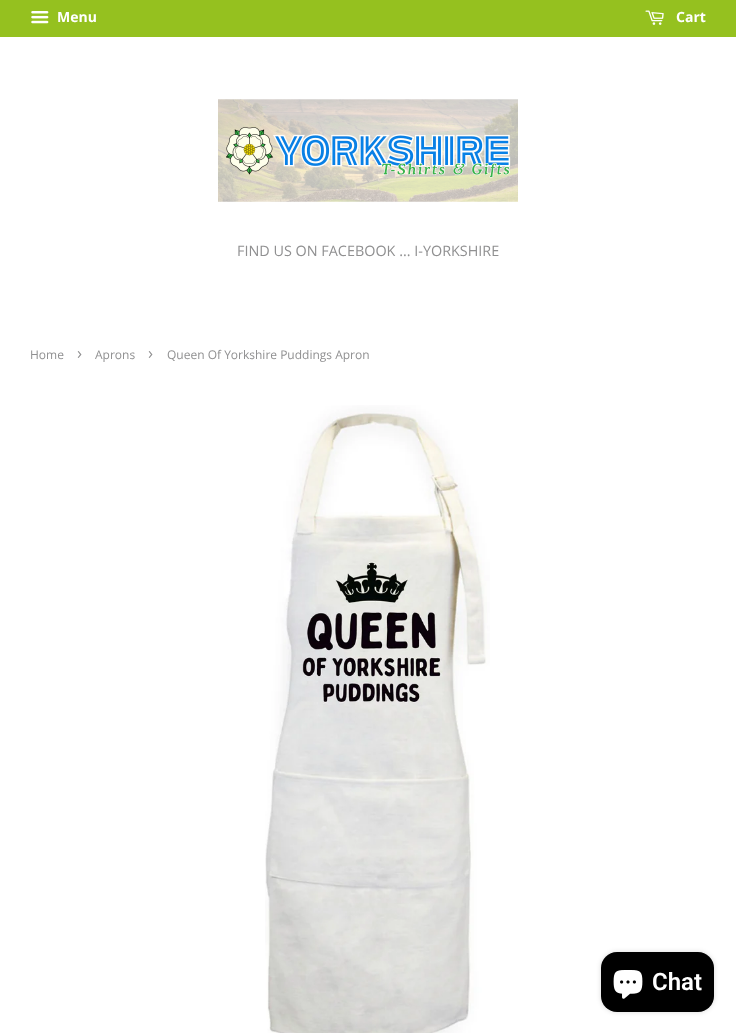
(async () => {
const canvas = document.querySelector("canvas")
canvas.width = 736
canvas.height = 1033
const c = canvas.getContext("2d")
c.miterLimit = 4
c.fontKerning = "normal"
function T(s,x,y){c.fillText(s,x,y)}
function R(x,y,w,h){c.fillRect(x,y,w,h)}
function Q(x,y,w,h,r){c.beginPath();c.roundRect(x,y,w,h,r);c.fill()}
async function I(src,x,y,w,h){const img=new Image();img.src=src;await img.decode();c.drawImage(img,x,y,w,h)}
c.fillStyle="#fff"
R(0,0,736,1033)
c.fillStyle="#95c11f"
R(0,0,736,37)
await I("1.png",31,11,18,13)
c.font="bold 14px Open Sans"
c.fillStyle="#fff"
T("Menu",57,22)
await I("2.png",645,10,19,15)
T("Cart",676,22)
await I("3.png",218,99,300,103)
c.font="14.4px Open Sans"
c.fillStyle="#909091"
T("FIND US ON FACEBOOK ... I-YORKSHIRE",237,256)
c.font="12px Open Sans"
T("Home",30,359)
c.font="17px Open Sans"
T("›",77,359)
c.font="12px Open Sans"
T("Aprons",95,359)
c.font="17px Open Sans"
T("›",148,359)
c.font="12px Open Sans"
T("Queen Of Yorkshire Puddings Apron",167,359)
await I("4.png",265,405,225,628)
c.fillStyle="#00000026"
c.filter="blur(2.5px)"
c.beginPath()
c.roundRect(601,952,113,60,16)
c.fill()
c.filter="none"
c.fillStyle="#000"
Q(601,952,113,60,16)
await I("5.png",613,970,30,29)
c.font="600 24px Roboto"
c.fillStyle="#fff"
T("Chat",652,990)
})()
